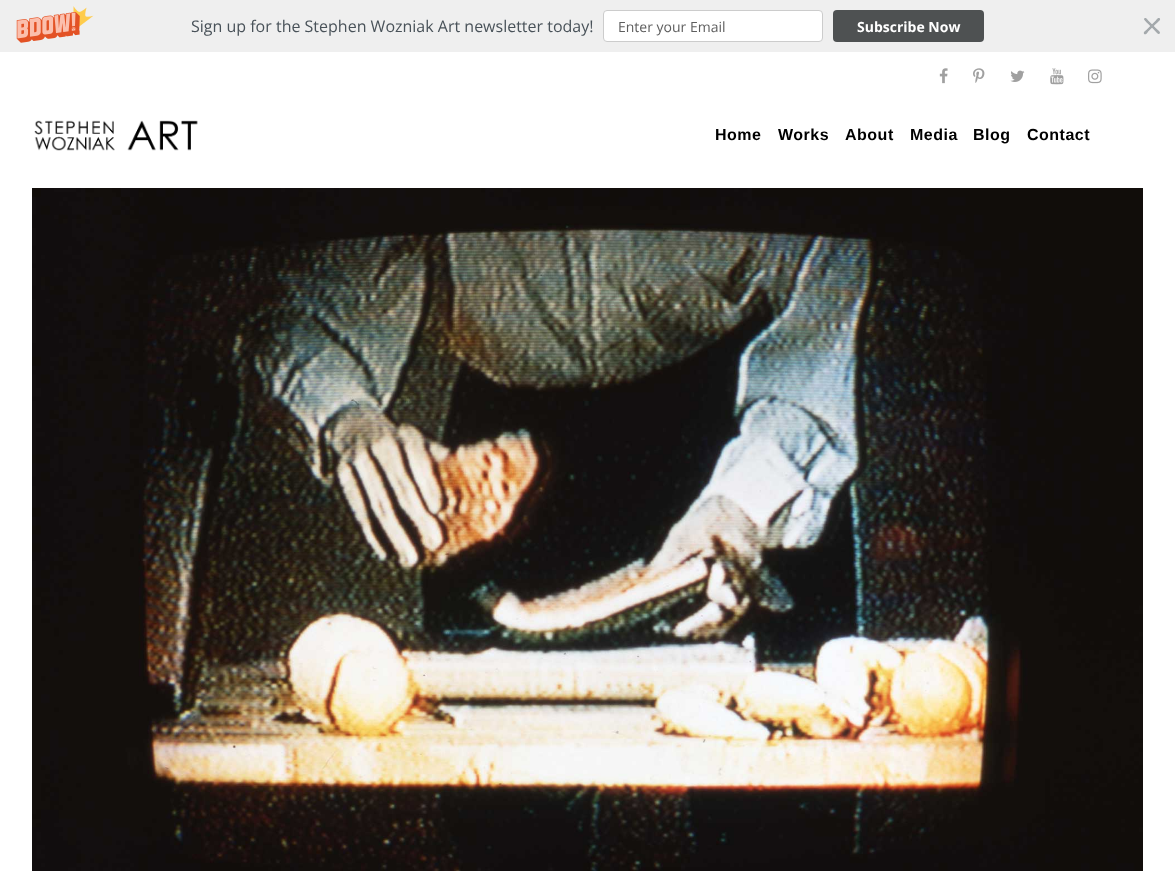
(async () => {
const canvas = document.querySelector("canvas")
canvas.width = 1175
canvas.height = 871
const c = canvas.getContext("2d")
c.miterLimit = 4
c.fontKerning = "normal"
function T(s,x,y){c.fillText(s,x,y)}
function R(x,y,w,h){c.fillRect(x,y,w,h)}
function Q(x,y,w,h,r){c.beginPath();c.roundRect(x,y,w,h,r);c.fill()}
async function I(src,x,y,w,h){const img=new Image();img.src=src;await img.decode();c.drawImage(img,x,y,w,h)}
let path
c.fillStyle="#fff"
R(0,0,1175,871)
c.fillStyle="#efefef"
R(0,0,1175,52)
await I("1.png",16,6,78,37)
c.font="16px Open Sans"
c.fillStyle="#495259"
T("Sign up for the Stephen Wozniak Art newsletter today!",191,32)
c.fillStyle="#fff"
c.beginPath()
c.roundRect(603.5,10.5,219,31,3.5)
c.fill()
c.strokeStyle="#ccc"
c.stroke()
c.font="14px Open Sans"
c.fillStyle="#5e5e5e"
T("Enter your Email",618,32)
c.fillStyle="#4e5152"
Q(833,10,151,32,4)
c.font="bold 14px Open Sans"
c.fillStyle="#fff"
T("Subscribe Now",857,32)
c.fillStyle="#a4a9ac"
path = new Path2D("M1152 24.5l-4-4c-.5-1-2.5-3.5-3.5-2c-1 1.5 5 6.5 6 7.5l-4 4c-.5 .5-4 2.5-2 4c1 1 3-1.5 3.5-2.5l4-4c1 1 6 7 7.5 6c1.5-1-1-3-2-3.5l-4-4l6.5-6c.5-1.5-1-2.5-2-1.5z")
c.fill(path)
path = new Path2D("M1152 24.5l4-4c.5-1 2.5-3.5 3.5-2c1 1.5-5 6.5-6 7.5c1 1 7 6 6 7.5c-1 1.5-3-1-3.5-2l-4-4l-4 4c-.5 1-2.5 3.5-3.5 2.5c-2-1.5 1.5-3.5 2-4l4-4l-6-6c-.5-.5-.5-1 0-1.5c.5-.5 1-.5 1.5 0z")
c.fill(path)
await I("2.png",939,68,9,16)
await I("3.png",973,68,12,15)
await I("4.png",1010,70,15,12)
await I("5.png",1050,68,14,17)
await I("6.png",1088,69,14,15)
await I("7.png",34,120,164,31)
c.letterSpacing="0.5px"
c.font="bold 16px Liberation Sans"
c.fillStyle="#000"
T("Home",715,140)
T("Works",778,140)
T("About",845,140)
T("Media",910,140)
T("Blog",973,140)
T("Contact",1027,140)
await I("8.png",32,188,1111,683)
})()
